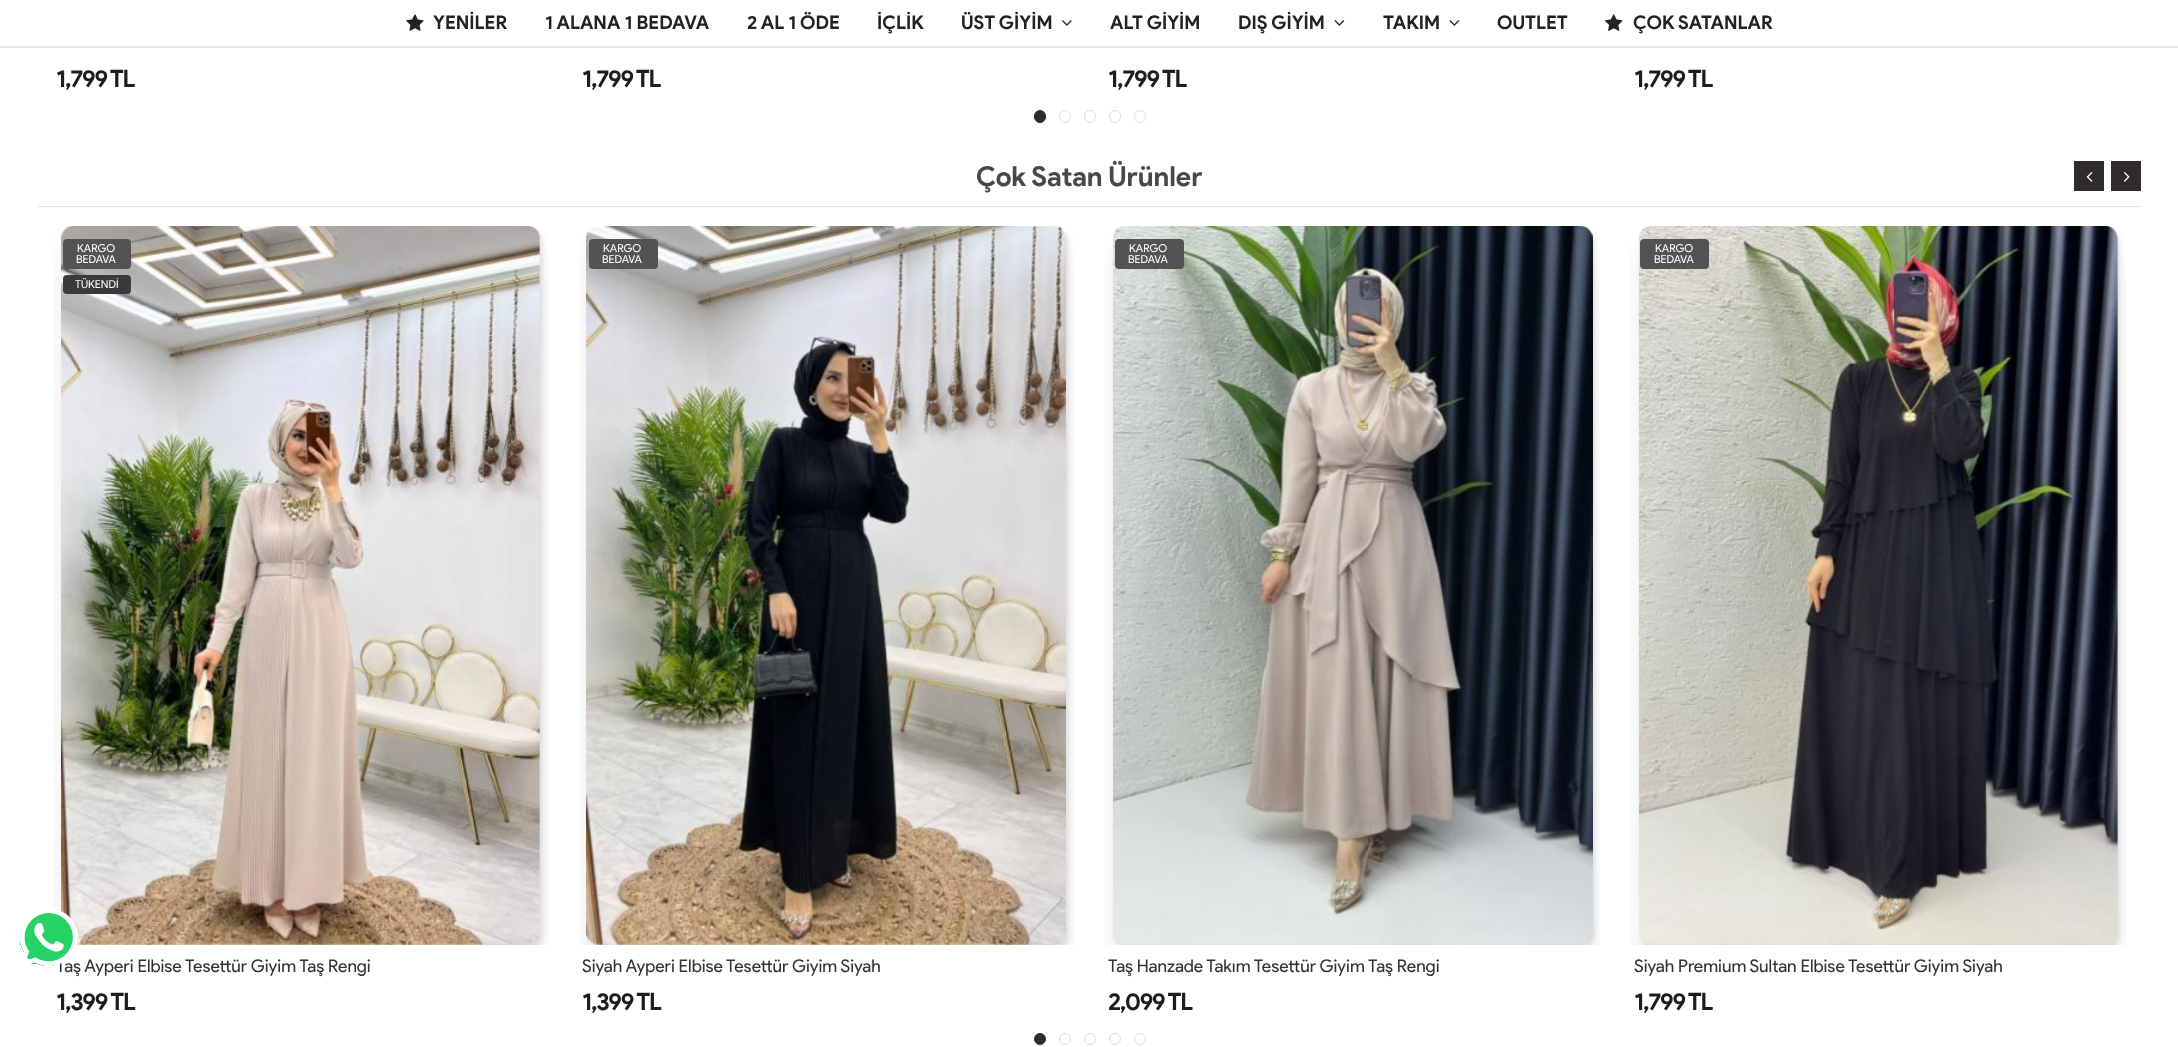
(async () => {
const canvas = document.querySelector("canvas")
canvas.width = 2178
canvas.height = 1047
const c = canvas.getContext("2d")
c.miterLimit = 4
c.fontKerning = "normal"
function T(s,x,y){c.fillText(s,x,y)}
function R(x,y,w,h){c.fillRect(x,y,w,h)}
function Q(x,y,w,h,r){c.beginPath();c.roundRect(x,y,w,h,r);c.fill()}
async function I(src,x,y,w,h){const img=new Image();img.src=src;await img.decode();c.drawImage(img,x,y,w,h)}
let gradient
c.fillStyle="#fff"
R(0,0,2178,1047)
c.fillStyle="#0000001a"
c.filter="blur(0.5px)"
c.beginPath()
c.rect(0,1,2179,47)
c.fill()
c.filter="none"
c.fillStyle="#fff"
R(0,0,2178,46)
await I("1.png",406,14,18,17)
c.font="bold 18.75px Product Sans"
c.fillStyle="#222"
T("YENİLER",433,29)
T("1 ALANA 1 BEDAVA",545,29)
T("2 AL 1 ÖDE",747,29)
T("İÇLİK",877,29)
T("ÜST GİYİM",961,29)
await I("2.png",1062,20,10,6)
T("ALT GİYİM",1110,29)
T("DIŞ GİYİM",1238,29)
await I("3.png",1334,20,11,6)
T("TAKIM",1383,29)
await I("3.png",1449,20,11,6)
T("OUTLET",1497,29)
await I("4.png",1605,14,18,17)
T("ÇOK SATANLAR",1633,29)
c.fillStyle="#e5e5e5"
R(38,206,2103,1)
c.save()
c.beginPath()
c.rect(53,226,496,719)
c.clip()
c.fillStyle="#00000012"
c.filter="blur(15px)"
c.beginPath()
c.roundRect(61,251,479,719,13)
c.fill()
c.filter="none"
c.fillStyle="#00000017"
c.filter="blur(2px)"
c.beginPath()
c.roundRect(64,230,479,719,13)
c.fill()
c.filter="none"
c.restore()
await I("8.png",61,226,479,719)
c.font="17.5px Product Sans"
c.fillStyle="#333"
T("Taş Ayperi Elbise Tesettür Giyim Taş Rengi",56,972)
gradient = c.createRadialGradient(48,938,0,48,938,45)
gradient.addColorStop(.63,"#25d366")
gradient.addColorStop(.63,"#25d36600")
c.fillStyle = gradient
R(20,913,53,53)
c.fillStyle="#25d366"
R(31,961,5,3)
await I("5.png",20,909,58,57)
c.letterSpacing="-1.25px"
c.font="bold 24px Product Sans"
c.fillStyle="#1d1d1b"
T("1,799 TL",56,87)
T("1,799 TL",582,87)
T("1,799 TL",1108,87)
T("1,799 TL",1634,87)
c.fillStyle="#2f2b2b"
c.beginPath()
c.roundRect(1034.5,110.5,11,12,5.5)
c.fill()
c.strokeStyle="#2f2b2b"
c.stroke()
c.beginPath()
c.roundRect(1059.5,110.5,11,12,5.5)
c.strokeStyle="#ddd"
c.stroke()
c.beginPath()
c.roundRect(1084.5,110.5,11,12,5.5)
c.stroke()
c.beginPath()
c.roundRect(1109.5,110.5,11,12,5.5)
c.stroke()
c.beginPath()
c.roundRect(1134.5,110.5,11,12,5.5)
c.stroke()
c.letterSpacing="0px"
c.font="bold 27.5px Product Sans"
c.fillStyle="#484848"
T("Çok Satan Ürünler",976,186)
c.fillStyle="#2f2b2b"
R(2074,161,30,30)
await I("6.png",2086,172,7,10)
R(2111,161,30,30)
await I("7.png",2123,172,7,10)
c.beginPath()
c.arc(1040,1039,5.5,0,7)
c.fill()
c.strokeStyle="#2f2b2b"
c.stroke()
c.beginPath()
c.arc(1065,1039,5.5,0,7)
c.strokeStyle="#ddd"
c.stroke()
c.beginPath()
c.arc(1090,1039,5.5,0,7)
c.stroke()
c.beginPath()
c.arc(1115,1039,5.5,0,7)
c.stroke()
c.beginPath()
c.arc(1140,1039,5.5,0,7)
c.stroke()
c.fillStyle="#535353"
Q(63,239,68,30,4)
c.font="11px Product Sans"
c.fillStyle="#fff"
T("KARGO",77,252)
T("BEDAVA",76,263)
c.fillStyle="#3a3a3c"
Q(63,275,68,19,4)
c.fillStyle="#fff"
T("TÜKENDİ",75,288)
c.letterSpacing="-1.25px"
c.font="bold 24px Product Sans"
c.fillStyle="#1d1d1b"
T("1,399 TL",56,1010)
c.save()
c.beginPath()
c.rect(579,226,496,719)
c.clip()
c.fillStyle="#00000012"
c.filter="blur(15px)"
c.beginPath()
c.roundRect(586,251,480,719,13)
c.fill()
c.filter="none"
c.fillStyle="#00000017"
c.filter="blur(2px)"
c.beginPath()
c.roundRect(589,230,480,719,13)
c.fill()
c.filter="none"
c.restore()
await I("9.png",586,226,480,719)
c.fillStyle="#535353"
Q(589,239,69,30,4)
c.letterSpacing="0px"
c.font="11px Product Sans"
c.fillStyle="#fff"
T("KARGO",603,252)
T("BEDAVA",602,263)
c.font="17.5px Product Sans"
c.fillStyle="#333"
T("Siyah Ayperi Elbise Tesettür Giyim Siyah",582,972)
c.letterSpacing="-1.25px"
c.font="bold 24px Product Sans"
c.fillStyle="#1d1d1b"
T("1,399 TL",582,1010)
c.save()
c.beginPath()
c.rect(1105,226,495,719)
c.clip()
c.fillStyle="#00000012"
c.filter="blur(15px)"
c.beginPath()
c.roundRect(1113,251,480,719,13)
c.fill()
c.filter="none"
c.fillStyle="#00000017"
c.filter="blur(2px)"
c.beginPath()
c.roundRect(1115,230,480,719,13)
c.fill()
c.filter="none"
c.restore()
await I("10.png",1113,226,480,719)
c.fillStyle="#535353"
Q(1115,239,69,30,4)
c.letterSpacing="0px"
c.font="11px Product Sans"
c.fillStyle="#fff"
T("KARGO",1129,252)
T("BEDAVA",1128,263)
c.font="17.5px Product Sans"
c.fillStyle="#333"
T("Taş Hanzade Takım Tesettür Giyim",1108,972)
T("Taş Rengi",1368,972)
c.letterSpacing="-1.25px"
c.font="bold 24px Product Sans"
c.fillStyle="#1d1d1b"
T("2,099 TL",1108,1010)
c.save()
c.beginPath()
c.rect(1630,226,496,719)
c.clip()
c.fillStyle="#00000012"
c.filter="blur(15px)"
c.beginPath()
c.roundRect(1639,251,479,719,13)
c.fill()
c.filter="none"
c.fillStyle="#00000017"
c.filter="blur(2px)"
c.beginPath()
c.roundRect(1641,230,479,719,13)
c.fill()
c.filter="none"
c.restore()
await I("11.png",1639,226,479,719)
c.fillStyle="#535353"
Q(1640,239,69,30,4)
c.letterSpacing="0px"
c.font="11px Product Sans"
c.fillStyle="#fff"
T("KARGO",1655,252)
T("BEDAVA",1654,263)
c.font="17.5px Product Sans"
c.fillStyle="#333"
T("Siyah Premium Sultan Elbise Tesettür Giyim Siyah",1634,972)
c.letterSpacing="-1.25px"
c.font="bold 24px Product Sans"
c.fillStyle="#1d1d1b"
T("1,799 TL",1634,1010)
})()
